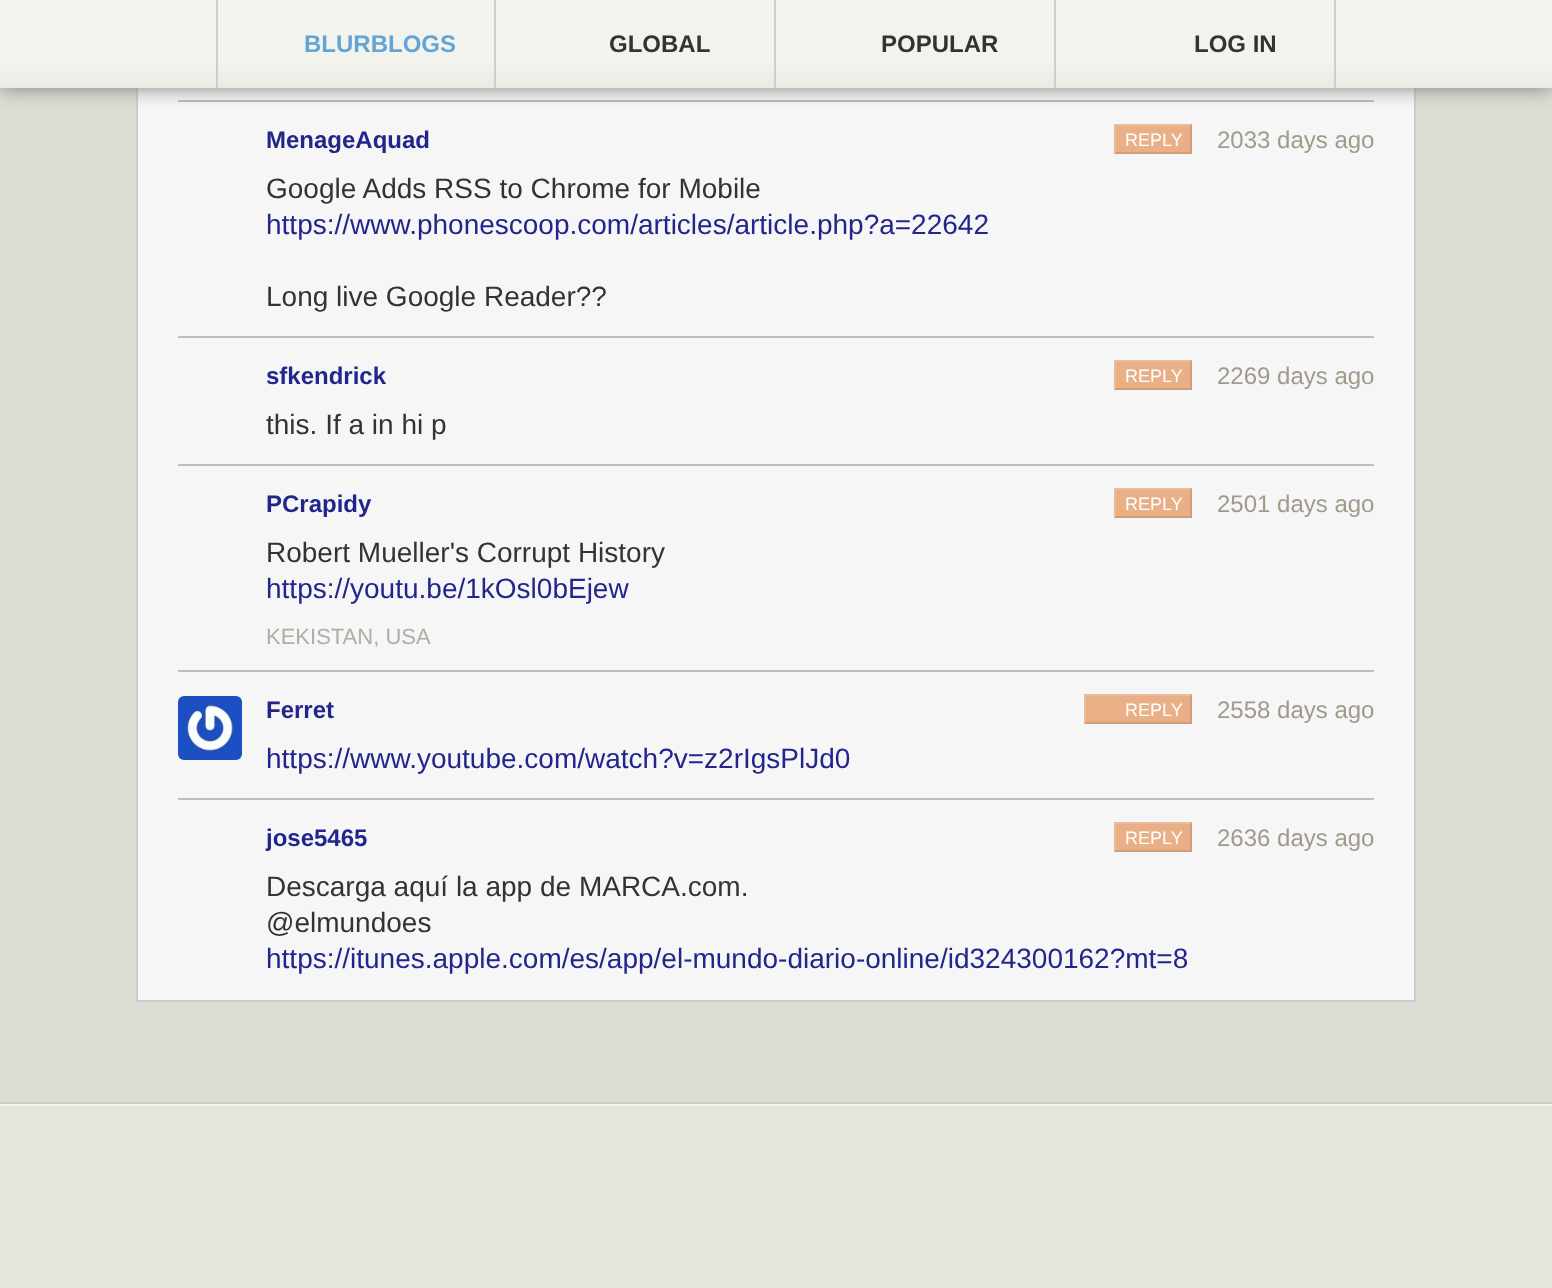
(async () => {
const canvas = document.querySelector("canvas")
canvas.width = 1552
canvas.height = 1288
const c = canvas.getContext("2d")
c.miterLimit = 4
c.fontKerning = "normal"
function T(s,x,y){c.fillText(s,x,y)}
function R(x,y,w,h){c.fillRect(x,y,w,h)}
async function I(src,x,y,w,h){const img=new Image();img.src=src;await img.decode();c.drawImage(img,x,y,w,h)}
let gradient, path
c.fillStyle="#dcded3"
R(0,0,1552,1288)
c.fillStyle="#f6f6f6"
R(138,88,1276,912)
c.fillStyle="#ccc"
R(1414,88,2,914)
R(136,1000,1280,2)
R(136,88,2,914)
c.fillStyle="#bdbdbd"
R(178,100,1196,2)
c.fillStyle="#7d7d7d"
c.filter="blur(10px)"
c.beginPath()
c.rect(0,0,1552,88)
c.fill()
c.filter="none"
gradient = c.createLinearGradient(776,0,776,88)
gradient.addColorStop(0,"#f3f3ee")
gradient.addColorStop(.7,"#f3f3ee")
gradient.addColorStop(1,"#e8ebe4")
c.fillStyle = gradient
R(0,0,1552,88)
c.fillStyle="#cdcdcd"
R(494,0,2,88)
R(216,0,2,88)
c.font="bold 24px Liberation Sans"
c.fillStyle="#62a4d3"
T("BLURBLOGS",304,52)
c.fillStyle="#cdcdcd"
R(774,0,2,88)
c.fillStyle="#333"
T("GLOBAL",609,52)
c.fillStyle="#cdcdcd"
R(1054,0,2,88)
c.fillStyle="#333"
T("POPULAR",881,52)
c.fillStyle="#cdcdcd"
R(1334,0,2,88)
c.fillStyle="#333"
T("LOG IN",1194,52)
c.fillStyle="#22258c"
T("MenageAquad",266,148)
c.fillStyle="#e9af86"
R(1114,124,78,30)
c.fillStyle="#ecbb98"
path = new Path2D("M1114 124h78l-2 2h-74z")
c.fill(path)
c.fillStyle="#0000001a"
path = new Path2D("M1192 124v30l-2-2v-26z")
c.fill(path)
path = new Path2D("M1192 154h-78l2-2h74z")
c.fill(path)
c.fillStyle="#ffffff26"
path = new Path2D("M1114 154v-30l2 2v26z")
c.fill(path)
c.font="18px Liberation Sans"
c.fillStyle="#fff"
T("REPLY",1125,146)
c.font="24px Liberation Sans"
c.fillStyle="#a09a8b"
T("2033 days ago",1217,148)
c.font="28px Liberation Sans"
c.fillStyle="#333"
T("Google Adds RSS to Chrome for Mobile",266,198)
c.fillStyle="#22258c"
T("https://www.phonescoop.com/articles/article.php?a=22642",266,234)
c.fillStyle="#333"
T("Long live Google Reader??",266,306)
c.fillStyle="#bdbdbd"
R(178,336,1196,2)
c.font="bold 24px Liberation Sans"
c.fillStyle="#22258c"
T("sfkendrick",266,384)
c.fillStyle="#e9af86"
R(1114,360,78,30)
c.fillStyle="#ecbb98"
path = new Path2D("M1114 360h78l-2 2h-74z")
c.fill(path)
c.fillStyle="#0000001a"
path = new Path2D("M1192 360v30l-2-2v-26z")
c.fill(path)
path = new Path2D("M1192 390h-78l2-2h74z")
c.fill(path)
c.fillStyle="#ffffff26"
path = new Path2D("M1114 390v-30l2 2v26z")
c.fill(path)
c.font="18px Liberation Sans"
c.fillStyle="#fff"
T("REPLY",1125,382)
c.font="24px Liberation Sans"
c.fillStyle="#a09a8b"
T("2269 days ago",1217,384)
c.font="28px Liberation Sans"
c.fillStyle="#333"
T("this. If a in hi p",266,434)
c.fillStyle="#bdbdbd"
R(178,464,1196,2)
c.font="bold 24px Liberation Sans"
c.fillStyle="#22258c"
T("PCrapidy",266,512)
c.fillStyle="#e9af86"
R(1114,488,78,30)
c.fillStyle="#ecbb98"
path = new Path2D("M1114 488h78l-2 2h-74z")
c.fill(path)
c.fillStyle="#0000001a"
path = new Path2D("M1192 488v30l-2-2v-26z")
c.fill(path)
path = new Path2D("M1192 518h-78l2-2h74z")
c.fill(path)
c.fillStyle="#ffffff26"
path = new Path2D("M1114 518v-30l2 2v26z")
c.fill(path)
c.font="18px Liberation Sans"
c.fillStyle="#fff"
T("REPLY",1125,510)
c.font="24px Liberation Sans"
c.fillStyle="#a09a8b"
T("2501 days ago",1217,512)
c.font="28px Liberation Sans"
c.fillStyle="#333"
T("Robert Mueller's Corrupt History",266,562)
c.fillStyle="#22258c"
T("https://youtu.be/1kOsl0bEjew",266,598)
c.font="22px Liberation Sans"
c.fillStyle="#b2aca3"
T("KEKISTAN, USA",266,644)
c.fillStyle="#bdbdbd"
R(178,670,1196,2)
await I("1.png",178,696,64,64)
c.font="bold 24px Liberation Sans"
c.fillStyle="#22258c"
T("Ferret",266,718)
c.fillStyle="#e9af86"
R(1084,694,108,30)
c.fillStyle="#ecbb98"
path = new Path2D("M1084 694h108l-2 2h-104z")
c.fill(path)
c.fillStyle="#0000001a"
path = new Path2D("M1192 694v30l-2-2v-26z")
c.fill(path)
path = new Path2D("M1192 724h-108l2-2h104z")
c.fill(path)
c.fillStyle="#ffffff26"
path = new Path2D("M1084 724v-30l2 2v26z")
c.fill(path)
c.font="18px Liberation Sans"
c.fillStyle="#fff"
T("REPLY",1125,716)
c.font="24px Liberation Sans"
c.fillStyle="#a09a8b"
T("2558 days ago",1217,718)
c.font="28px Liberation Sans"
c.fillStyle="#22258c"
T("https://www.youtube.com/watch?v=z2rIgsPlJd0",266,768)
c.fillStyle="#bdbdbd"
R(178,798,1196,2)
c.font="bold 24px Liberation Sans"
c.fillStyle="#22258c"
T("jose5465",266,846)
c.fillStyle="#e9af86"
R(1114,822,78,30)
c.fillStyle="#ecbb98"
path = new Path2D("M1114 822h78l-2 2h-74z")
c.fill(path)
c.fillStyle="#0000001a"
path = new Path2D("M1192 822v30l-2-2v-26z")
c.fill(path)
path = new Path2D("M1192 852h-78l2-2h74z")
c.fill(path)
c.fillStyle="#ffffff26"
path = new Path2D("M1114 852v-30l2 2v26z")
c.fill(path)
c.font="18px Liberation Sans"
c.fillStyle="#fff"
T("REPLY",1125,844)
c.font="24px Liberation Sans"
c.fillStyle="#a09a8b"
T("2636 days ago",1217,846)
c.font="28px Liberation Sans"
c.fillStyle="#333"
T("Descarga aquí la app de MARCA.com.",266,896)
T("@elmundoes",266,932)
c.fillStyle="#22258c"
T("https://itunes.apple.com/es/app/el-mundo-diario-online/id324300162?mt=8",266,968)
c.fillStyle="#e4e6db"
R(0,1106,1552,182)
c.fillStyle="#cdcfc5"
R(0,1102,1552,2)
c.fillStyle="#f4f5f1"
R(0,1104,1552,2)
})()
